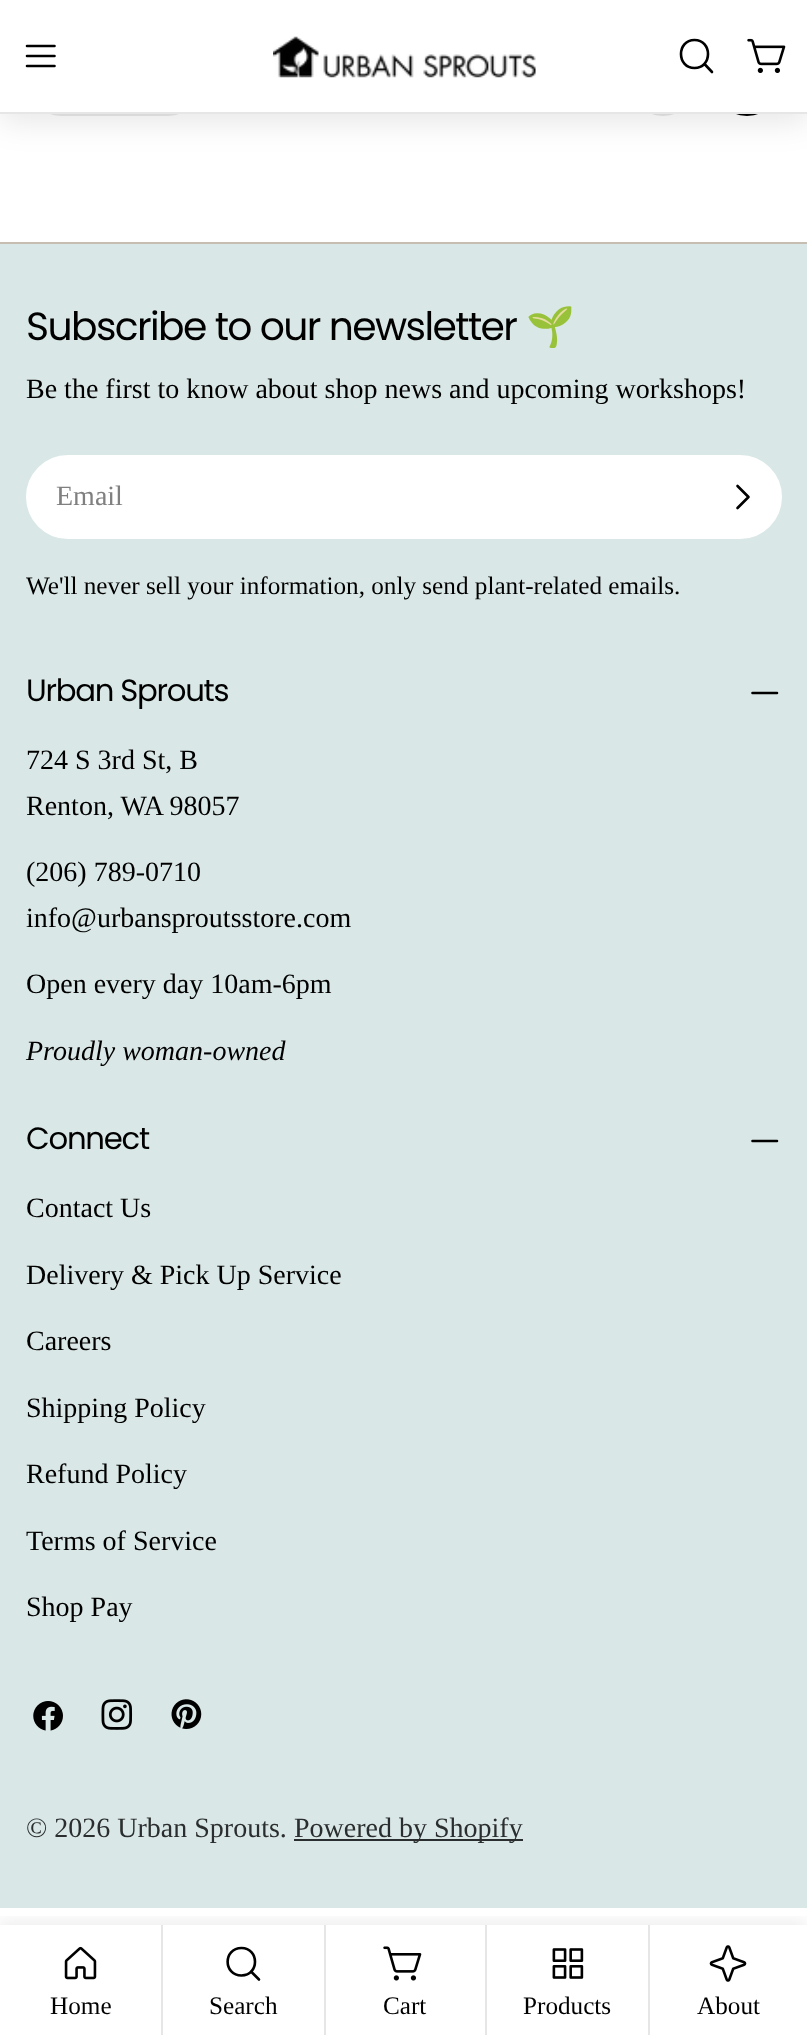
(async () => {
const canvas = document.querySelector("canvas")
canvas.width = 807
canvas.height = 2035
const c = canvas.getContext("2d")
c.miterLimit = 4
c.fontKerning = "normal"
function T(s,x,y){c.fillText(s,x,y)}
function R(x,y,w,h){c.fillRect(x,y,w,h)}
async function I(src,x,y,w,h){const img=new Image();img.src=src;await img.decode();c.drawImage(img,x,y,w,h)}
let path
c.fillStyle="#fff"
R(0,0,807,2035)
c.beginPath()
c.roundRect(27,47,175,68,34)
c.strokeStyle="#e9e9e9"
c.lineWidth=2
c.stroke()
c.beginPath()
c.arc(663,81,34,0,7)
c.strokeStyle="#e6e6e6"
c.stroke()
c.beginPath()
c.arc(747,81,34,0,7)
c.strokeStyle="#000"
c.stroke()
c.fillStyle="#0000001a"
c.filter="blur(16px)"
c.beginPath()
c.rect(0,7,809,114)
c.fill()
c.filter="none"
c.fillStyle="#e6e6e6"
R(0,112,807,2)
c.fillStyle="#fff"
R(0,0,807,112)
path = new Path2D("M27 56h27.5m-27.5-10h27.5m-27.5 20h27.5")
c.lineWidth=2.6
c.lineCap="round"
c.lineJoin="round"
c.stroke(path)
await I("1.png",273,36,263,42)
path = new Path2D("M694.5 68c18 0 18-28 0-28c-18 0-18 28 0 28zm10-4l7.5 8")
c.stroke(path)
await I("2.png",747,38,39,35)
c.fillStyle="#d9e7e6"
R(0,244,807,1664)
c.fillStyle="#c6bfb1"
R(0,242,807,2)
c.letterSpacing="-1.6px"
c.font="39.25px Poppins"
c.fillStyle="#000"
T("Subscribe to our newsletter",26,340)
c.font="39.25px Noto Color Emoji"
T("🌱",526,340)
c.letterSpacing="0px"
c.font="28px Liberation Serif"
T("Be the first to know about shop news and upcoming workshops!",26,398)
c.fillStyle="#fff"
c.beginPath()
c.roundRect(27,456,754,82,41)
c.fill()
c.strokeStyle="#fff"
c.lineWidth=2
c.lineJoin="miter"
c.stroke()
c.fillStyle="#808080"
T("Email",56,505)
path = new Path2D("M737.5 486l11 11l-11 11")
c.strokeStyle="#000"
c.lineWidth=2.6
c.lineJoin="round"
c.stroke(path)
c.font="25.2px Liberation Serif"
c.fillStyle="#000"
T("We'll never sell your information, only send plant-related emails.",26,594)
c.letterSpacing="-1.25px"
c.font="30.75px Poppins"
T("Urban Sprouts",26,701)
path = new Path2D("M752.5 693h24.5m-24.5 0h24.5")
c.stroke(path)
c.letterSpacing="0px"
c.font="28px Liberation Serif"
T("724 S 3rd St, B",26,769)
T("Renton, WA 98057",26,815)
T("(206) 789-0710",26,881)
T("info@urbansproutsstore.com",26,927)
T("Open every day 10am-6pm",26,993)
c.font="italic 28px Liberation Serif"
T("Proudly woman-owned",26,1060)
c.letterSpacing="-1.25px"
c.font="30.75px Poppins"
T("Connect",26,1149)
path = new Path2D("M752.5 1141h24.5m-24.5 0h24.5")
c.stroke(path)
c.letterSpacing="0px"
c.font="28px Liberation Serif"
T("Contact Us",26,1217)
T("Delivery & Pick Up Service",26,1284)
T("Careers",26,1350)
T("Shipping Policy",26,1417)
T("Refund Policy",26,1483)
T("Terms of Service",26,1550)
T("Shop Pay",26,1616)
await I("3.png",33,1701,30,30)
await I("4.png",101,1699,32,31)
await I("5.png",171,1699,31,30)
c.fillStyle="#2b2e2e"
T("© 2026 Urban Sprouts.",26,1837)
R(294,1839,229,2)
T("Powered by Shopify",294,1837)
c.save()
c.beginPath()
c.rect(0,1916,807,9)
c.clip()
c.fillStyle="#00000014"
c.filter="blur(9px)"
c.beginPath()
c.rect(-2,1922,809,110)
c.fill()
c.filter="none"
c.restore()
await I("6.png",64,1946,33,34)
c.font="25.2px Liberation Serif"
c.fillStyle="#000"
T("Home",50,2014)
c.fillStyle="#e6e6e6"
R(161,1925,2,110)
path = new Path2D("M241.5 1975.5c18 0 18-27.5 0-27.5c-18.5 0-18.5 27.5 0 27.5zm9.5-4l8 8")
c.stroke(path)
c.fillStyle="#000"
T("Search",209,2014)
c.fillStyle="#e6e6e6"
R(324,1925,2,110)
await I("7.png",383,1946,39,35)
c.fillStyle="#000"
T("Cart",383,2014)
c.fillStyle="#e6e6e6"
R(485,1925,2,110)
await I("8.png",552,1948,32,31)
c.fillStyle="#000"
T("Products",523,2014)
c.fillStyle="#e6e6e6"
R(648,1925,2,110)
await I("9.png",709,1945,38,37)
c.fillStyle="#000"
T("About",697,2014)
})()
